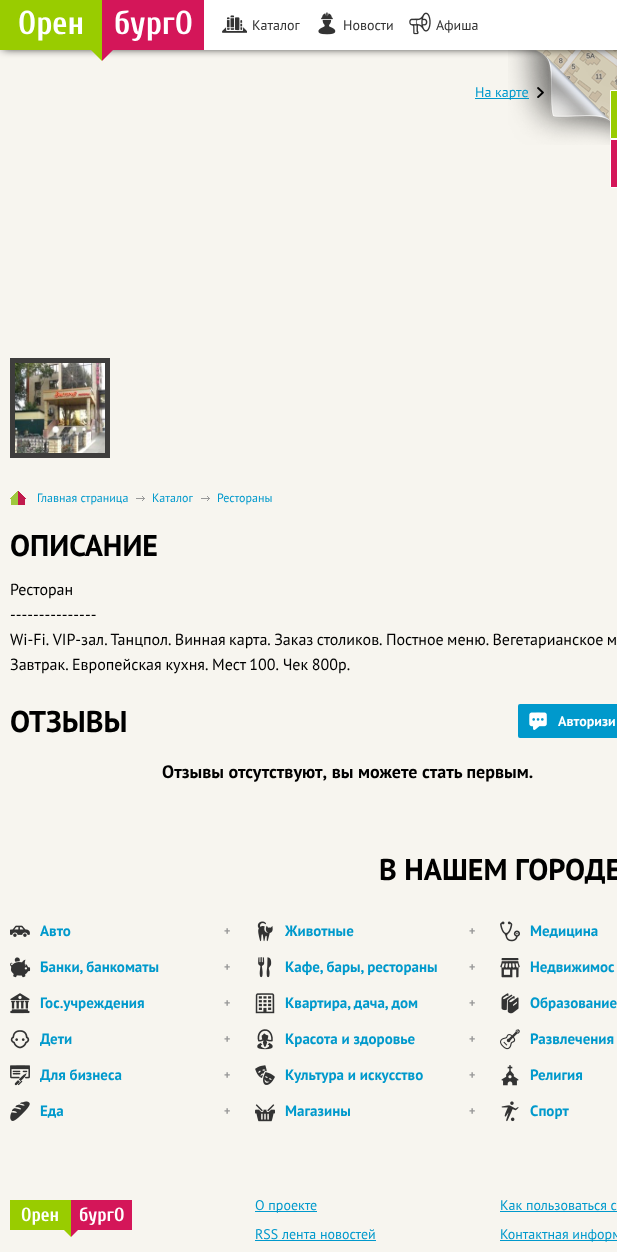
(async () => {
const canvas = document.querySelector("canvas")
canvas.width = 617
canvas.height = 1252
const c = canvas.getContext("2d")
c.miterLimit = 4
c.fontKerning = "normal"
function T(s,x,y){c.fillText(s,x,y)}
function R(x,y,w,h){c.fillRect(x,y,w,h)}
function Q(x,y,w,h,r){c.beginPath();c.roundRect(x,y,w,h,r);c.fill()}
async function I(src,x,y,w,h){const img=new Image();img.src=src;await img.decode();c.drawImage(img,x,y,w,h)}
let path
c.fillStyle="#f7f5ef"
R(0,0,617,1252)
await I("4.png",508,50,109,95)
c.fillStyle="#000"
c.filter="blur(5px)"
c.beginPath()
c.rect(3,4,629,44)
c.fill()
c.filter="none"
c.fillStyle="#fff"
R(204,0,413,50)
c.fillStyle="#9c0"
R(0,0,102,50)
c.font="bold 33px Cuprum"
c.fillStyle="#fff"
T("Орен",18,34)
c.fillStyle="#9c0"
path = new Path2D("M91 50h11v11z")
c.fill(path)
c.fillStyle="#d41659"
R(102,0,102,50)
c.fillStyle="#fff"
T("бургО",114,34)
c.fillStyle="#d41659"
path = new Path2D("M102 50h11l-11 11z")
c.fill(path)
await I("1.png",222,15,25,18)
c.font="14px PT Sans"
c.fillStyle="#333"
T("Каталог",252,30)
await I("2.png",318,12,18,23)
T("Новости",343,30)
await I("3.png",409,12,22,23)
T("Афиша",436,30)
await I("5.png",537,87,7,11)
c.fillStyle="#09c"
R(475,98,54,1)
T("На карте",475,97)
c.fillStyle="#9c0"
c.beginPath()
c.rect(610.5,90.5,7,48)
c.fill()
c.strokeStyle="#fff"
c.stroke()
c.fillStyle="#d41659"
c.beginPath()
c.rect(610.5,139.5,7,48)
c.fill()
c.stroke()
c.fillStyle="#3e3d3c"
R(10,358,100,100)
await I("6.png",15,363,90,90)
await I("7.png",10,491,16,14)
await I("8.png",136,496,9,5)
c.font="12px PT Sans"
c.fillStyle="#09c"
T("Главная страница",37,502)
await I("8.png",201,496,9,5)
T("Каталог",152,502)
T("Рестораны",217,502)
c.font="bold 30px PT Sans"
c.fillStyle="#000"
T("ОПИСАНИЕ",10,556)
c.font="16px PT Sans"
T("Ресторан",10,595)
T("---------------",10,620)
c.wordSpacing="-0.9px"
T("Wi-Fi. VIP-зал. Танцпол. Винная карта. Заказ столиков. Постное меню. Вегетарианское м",10,645)
c.wordSpacing="0px"
T("Завтрак.",10,670)
c.wordSpacing="-0.5px"
T("Европейская кухня. Мест 100. Чек 800р.",72,670)
c.wordSpacing="0px"
c.font="bold 30px PT Sans"
T("ОТЗЫВЫ",10,732)
c.fillStyle="#09c"
Q(518,704,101,34,2)
await I("9.png",529,712,18,18)
c.font="bold 14px PT Sans"
c.fillStyle="#fff"
T("Авторизи",558,726)
c.font="bold 18px PT Sans"
c.fillStyle="#000"
T("Отзывы отсутствуют, вы можете стать первым.",162,778)
c.font="bold 30px PT Sans"
T("В НАШЕМ ГОРОДЕ",379,880)
await I("10.png",10,925,20,12)
c.font="bold 15px PT Sans"
c.fillStyle="#09c"
T("Авто",40,936)
c.font="bold 12px PT Sans"
c.fillStyle="#999"
T("+",224,935)
await I("11.png",10,957,21,21)
c.wordSpacing="-1px"
c.font="bold 15px PT Sans"
c.fillStyle="#09c"
T("Банки, банкоматы",40,972)
c.wordSpacing="0px"
c.font="bold 12px PT Sans"
c.fillStyle="#999"
T("+",224,971)
await I("12.png",10,993,20,21)
c.font="bold 15px PT Sans"
c.fillStyle="#09c"
T("Гос.учреждения",40,1008)
c.font="bold 12px PT Sans"
c.fillStyle="#999"
T("+",224,1007)
await I("13.png",10,1030,20,19)
c.font="bold 15px PT Sans"
c.fillStyle="#09c"
T("Дети",40,1044)
c.font="bold 12px PT Sans"
c.fillStyle="#999"
T("+",224,1043)
await I("14.png",10,1065,20,21)
c.font="bold 15px PT Sans"
c.fillStyle="#09c"
T("Для бизнеса",40,1080)
c.font="bold 12px PT Sans"
c.fillStyle="#999"
T("+",224,1079)
await I("15.png",10,1101,20,20)
c.font="bold 15px PT Sans"
c.fillStyle="#09c"
T("Еда",40,1116)
c.font="bold 12px PT Sans"
c.fillStyle="#999"
T("+",224,1115)
await I("16.png",257,921,16,21)
c.font="bold 15px PT Sans"
c.fillStyle="#09c"
T("Животные",285,936)
c.font="bold 12px PT Sans"
c.fillStyle="#999"
T("+",469,935)
await I("17.png",258,957,14,21)
c.wordSpacing="-1px"
c.font="bold 15px PT Sans"
c.fillStyle="#09c"
T("Кафе, бары, рестораны",285,972)
c.wordSpacing="0px"
c.font="bold 12px PT Sans"
c.fillStyle="#999"
T("+",469,971)
await I("18.png",255,993,20,21)
c.wordSpacing="-1px"
c.font="bold 15px PT Sans"
c.fillStyle="#09c"
T("Квартира, дача, дом",285,1008)
c.wordSpacing="0px"
c.font="bold 12px PT Sans"
c.fillStyle="#999"
T("+",469,1007)
await I("19.png",257,1029,16,21)
c.font="bold 15px PT Sans"
c.fillStyle="#09c"
T("Красота и здоровье",285,1044)
c.font="bold 12px PT Sans"
c.fillStyle="#999"
T("+",469,1043)
await I("20.png",255,1065,20,20)
c.font="bold 15px PT Sans"
c.fillStyle="#09c"
T("Культура и искусство",285,1080)
c.font="bold 12px PT Sans"
c.fillStyle="#999"
T("+",469,1079)
await I("21.png",255,1104,20,18)
c.font="bold 15px PT Sans"
c.fillStyle="#09c"
T("Магазины",285,1116)
c.font="bold 12px PT Sans"
c.fillStyle="#999"
T("+",469,1115)
await I("22.png",500,921,20,21)
c.font="bold 15px PT Sans"
c.fillStyle="#09c"
T("Медицина",530,936)
await I("23.png",500,958,20,20)
T("Недвижимос",530,972)
await I("24.png",501,993,18,21)
T("Образование",530,1008)
await I("25.png",500,1029,20,21)
T("Развлечения",530,1044)
await I("26.png",501,1065,18,21)
T("Религия",530,1080)
await I("27.png",501,1101,18,21)
T("Спорт",530,1116)
c.fillStyle="#9c0"
R(10,1200,61,30)
c.font="bold 19px Cuprum"
c.fillStyle="#fff"
T("Орен",21,1221)
c.fillStyle="#9c0"
path = new Path2D("M64 1230h7v7z")
c.fill(path)
c.fillStyle="#d41659"
R(71,1200,61,30)
c.fillStyle="#fff"
T("бургО",79,1221)
c.fillStyle="#d41659"
path = new Path2D("M71 1230h7l-7 7z")
c.fill(path)
c.fillStyle="#09c"
R(255,1211,62,1)
c.font="14px PT Sans"
T("О проекте",255,1210)
T("RSS лента новостей",255,1239)
R(255,1240,121,1)
T("Как пользоваться с",500,1210)
R(500,1211,117,1)
R(500,1240,117,1)
T("Контактная информ",500,1239)
})()
